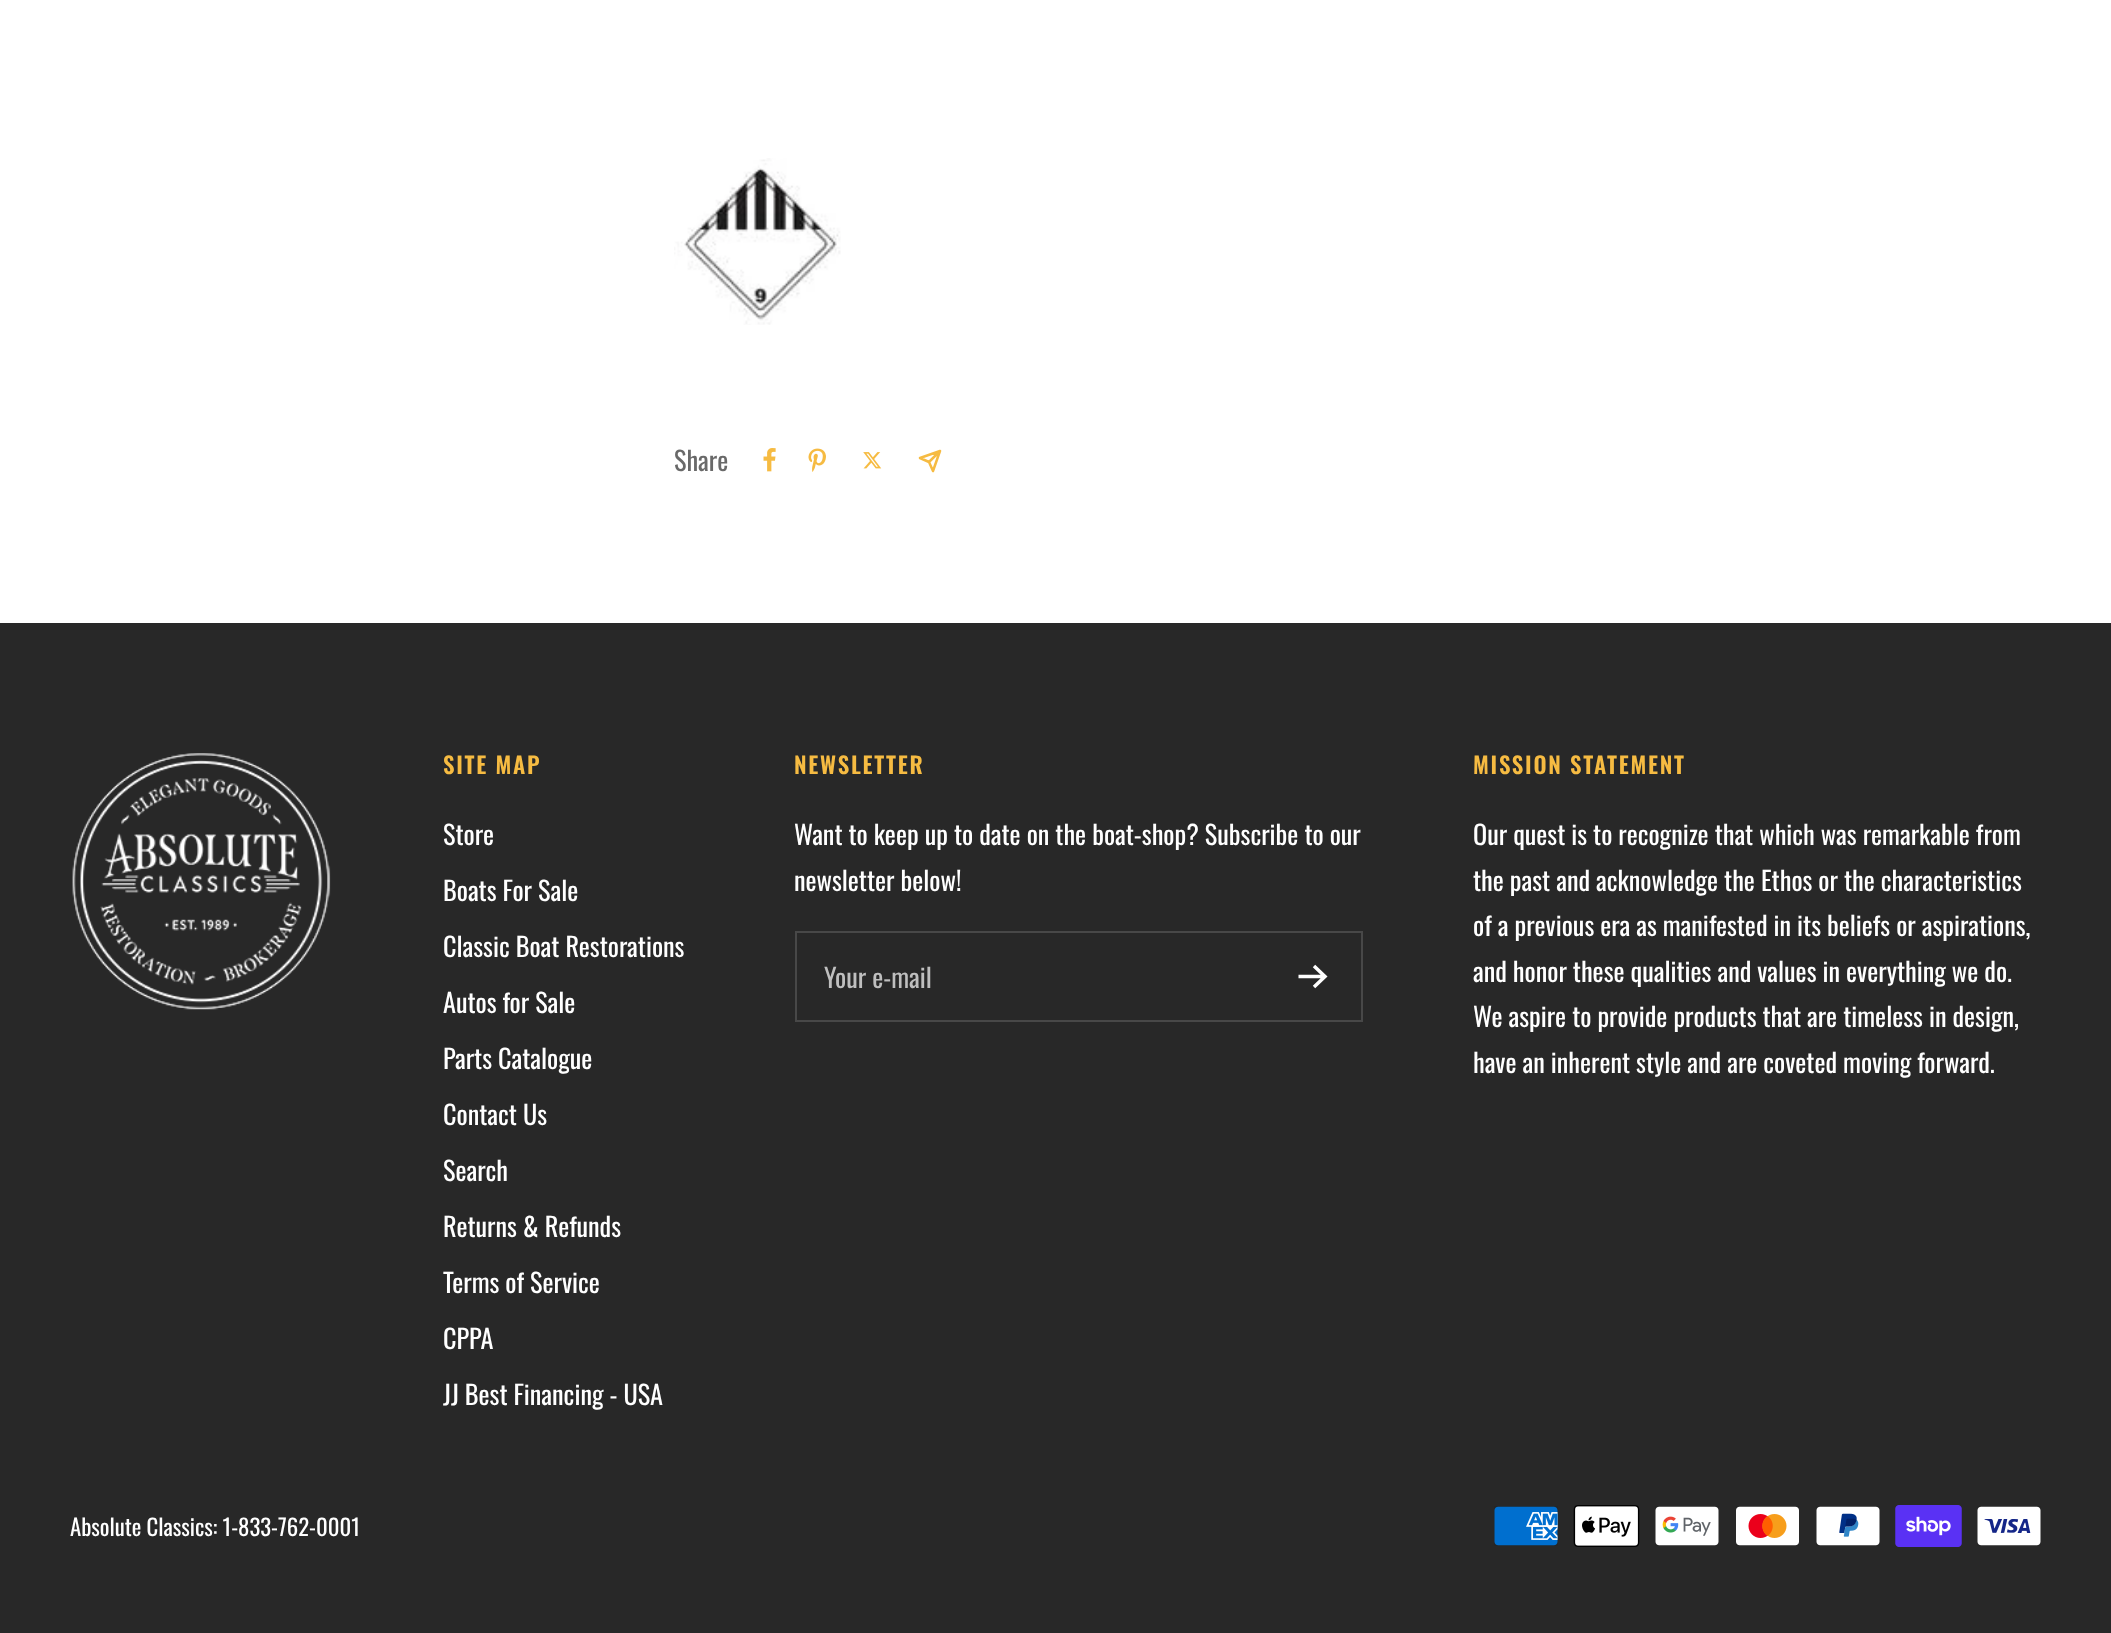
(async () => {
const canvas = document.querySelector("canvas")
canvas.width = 2111
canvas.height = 1633
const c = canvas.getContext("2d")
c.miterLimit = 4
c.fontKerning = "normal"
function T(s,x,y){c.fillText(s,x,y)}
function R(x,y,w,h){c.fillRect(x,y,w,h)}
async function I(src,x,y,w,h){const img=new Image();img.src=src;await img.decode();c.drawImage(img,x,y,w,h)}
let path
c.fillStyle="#fff"
R(0,0,2111,1633)
await I("1.png",674,158,167,167)
c.font="26.25px Oswald"
c.fillStyle="#696969"
T("Share",674,471)
await I("2.png",763,448,13,24)
await I("3.png",808,448,18,24)
await I("4.png",863,452,19,17)
path = new Path2D("M940 451l-7 20l-4-9m11-11l-20 7l9 4m11-11l-11 11")
c.strokeStyle="#f6bb42"
c.lineWidth=2.5
c.lineCap="round"
c.lineJoin="round"
c.stroke(path)
c.fillStyle="#282828"
R(0,623,2111,1010)
await I("5.png",72,753,259,257)
c.letterSpacing="1.75px"
c.font="600 22.75px Oswald"
c.fillStyle="#f6bb42"
T("SITE MAP",443,774)
c.letterSpacing="0px"
c.font="26.25px Oswald"
c.fillStyle="#fff"
T("Store",443,845)
T("Boats For Sale",443,901)
T("Classic Boat Restorations",443,957)
T("Autos for Sale",443,1013)
T("Parts Catalogue",443,1069)
T("Contact Us",443,1125)
T("Search",443,1181)
T("Returns & Refunds",443,1237)
T("Terms of Service",443,1293)
T("CPPA",443,1349)
T("JJ Best Financing - USA",443,1405)
c.letterSpacing="1.75px"
c.font="600 22.75px Oswald"
c.fillStyle="#f6bb42"
T("NEWSLETTER",794,774)
c.letterSpacing="0px"
c.font="26.25px Oswald"
c.fillStyle="#fff"
T("Want to keep up to date on the boat-shop? Subscribe to our",794,845)
T("newsletter below!",794,891)
c.strokeStyle="#484848"
c.lineWidth=2
c.lineJoin="miter"
c.strokeRect(796,932,566,89)
c.fillStyle="#bfbfbf"
T("Your e-mail",824,988)
path = new Path2D("M1298.5 976.5h26.5m-11-10.5l11 10.5l-11 10.5")
c.strokeStyle="#fff"
c.lineWidth=3.5
c.lineCap="butt"
c.stroke(path)
c.letterSpacing="1.75px"
c.font="600 22.75px Oswald"
c.fillStyle="#f6bb42"
T("MISSION STATEMENT",1473,774)
c.letterSpacing="0px"
c.font="26.25px Oswald"
c.fillStyle="#fff"
T("Our quest is to recognize that which was remarkable from",1473,845)
T("the past and acknowledge the Ethos or the characteristics",1473,891)
T("of a previous era as manifested in its beliefs or aspirations,",1473,936)
T("and honor these qualities and values in everything we do.",1473,982)
T("We aspire to provide products that are timeless in design,",1473,1027)
T("have an inherent style and are coveted moving forward.",1473,1073)
c.font="22.75px Oswald"
T("Absolute Classics: 1-833-762-0001",70,1536)
await I("6.png",1494,1506,64,40)
await I("7.png",1573,1505,67,42)
await I("8.png",1655,1506,64,40)
await I("9.png",1736,1506,63,40)
await I("10.png",1816,1506,64,40)
await I("11.png",1895,1505,67,42)
await I("12.png",1977,1506,64,40)
})()
